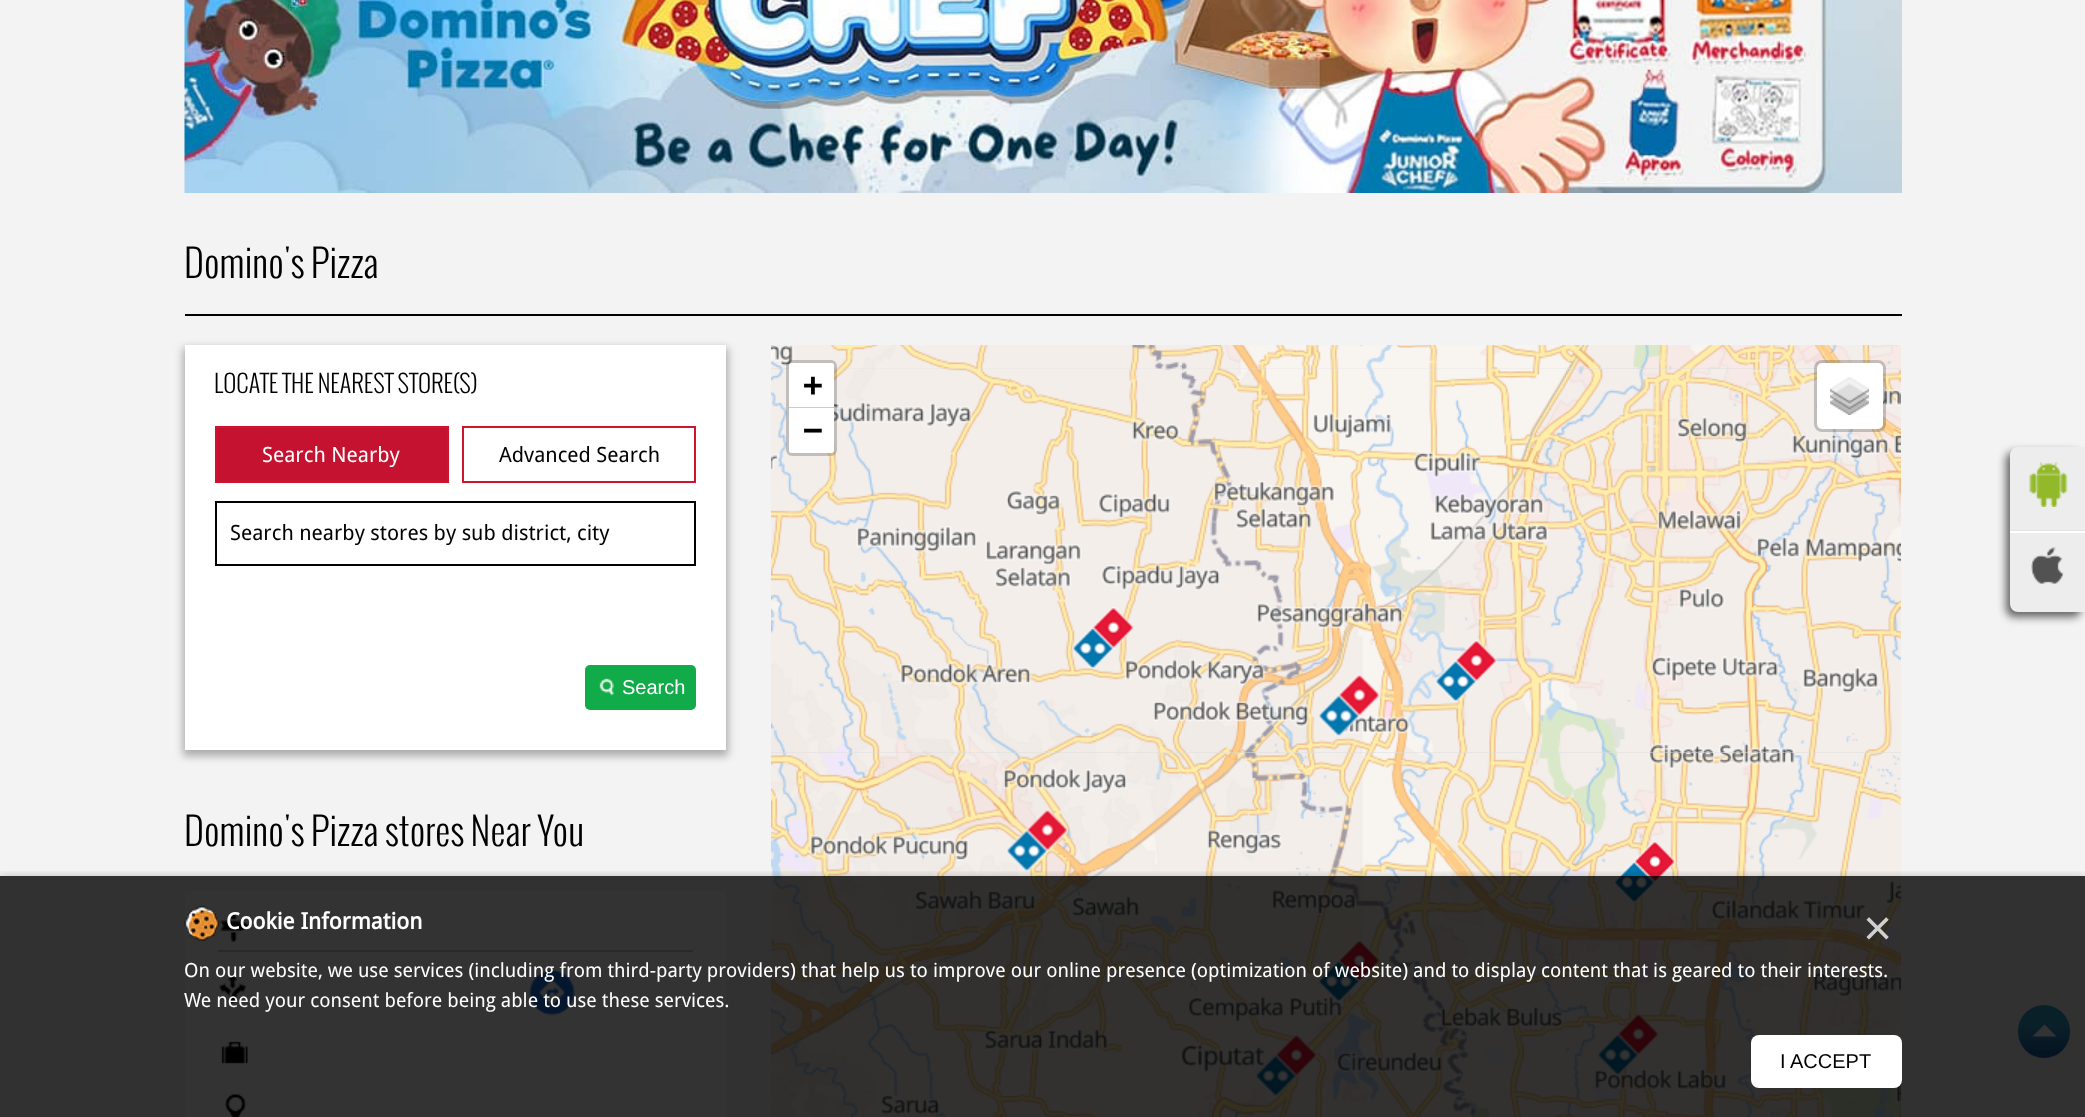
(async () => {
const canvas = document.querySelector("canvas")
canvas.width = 2085
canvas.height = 1117
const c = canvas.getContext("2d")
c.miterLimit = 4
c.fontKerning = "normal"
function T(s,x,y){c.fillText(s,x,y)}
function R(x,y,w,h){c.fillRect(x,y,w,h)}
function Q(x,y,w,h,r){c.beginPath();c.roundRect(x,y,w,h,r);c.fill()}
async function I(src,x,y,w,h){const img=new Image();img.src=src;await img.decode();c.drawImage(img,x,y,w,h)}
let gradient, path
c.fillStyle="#f3f3f3"
R(0,0,2085,1117)
await I("1.png",184,0,1718,193)
c.fillStyle="#000"
R(185,314,1717,2)
c.font="300 37.5px Oswald"
T("Domino's Pizza",184,278)
c.fillStyle="#0000004d"
c.filter="blur(4.5px)"
c.beginPath()
c.rect(183,348,545,408)
c.fill()
c.filter="none"
c.fillStyle="#fff"
R(185,345,541,405)
c.font="300 24px Oswald"
c.fillStyle="#000"
T("LOCATE THE NEAREST STORE(S)",214,393)
c.fillStyle="#c51230"
c.beginPath()
c.rect(216,427,232,55)
c.fill()
c.strokeStyle="#cf152d"
c.lineWidth=2
c.stroke()
c.font="21px Droid Sans"
c.fillStyle="#fff"
T("Search Nearby",262,462)
c.strokeRect(463,427,232,55)
c.fillStyle="#000"
T("Advanced Search",499,462)
c.strokeStyle="#000"
c.strokeRect(216,502,479,63)
T("Search nearby stores by sub district, city",230,540)
c.fillStyle="#12ab49"
Q(585,665,111,45,5)
await I("2.png",599,678,15,18)
c.font="20px Liberation Sans"
c.fillStyle="#fff"
T("Search",622,694)
c.font="300 37.5px Oswald"
c.fillStyle="#000"
T("Domino's Pizza stores Near You",184,846)
c.fillStyle="#fff"
R(185,891,541,226)
c.fillStyle="#ccc"
R(218,950,475,2)
await I("3.png",219,914,32,28)
await I("4.png",218,974,29,30)
await I("5.png",529,969,46,47)
await I("6.png",221,1041,27,23)
await I("7.png",224,1094,23,23)
c.fillStyle="#ddd"
R(771,345,1130,772)
await I("8.png",771,345,27,24)
await I("13.png",798,368,385,385)
await I("14.png",1182,368,385,385)
await I("9.png",798,345,385,24)
await I("10.png",1182,345,385,24)
await I("11.png",1566,345,335,24)
await I("12.png",771,369,28,384)
await I("15.png",1566,369,335,384)
await I("17.png",798,753,384,364)
await I("16.png",771,753,28,364)
await I("18.png",1182,753,384,364)
await I("19.png",1566,753,335,364)
await I("20.png",1072,607,62,62)
await I("21.png",1318,674,63,63)
await I("22.png",1435,640,63,62)
await I("23.png",1006,809,63,63)
await I("24.png",1614,841,62,62)
await I("25.png",1318,940,63,62)
await I("26.png",1255,1035,63,62)
await I("27.png",1597,1013,62,63)
c.beginPath()
c.roundRect(787.5,361.5,48,93,4.5)
c.strokeStyle="#00000033"
c.lineWidth=3
c.stroke()
c.fillStyle="#fff"
c.beginPath()
c.roundRect(789,363,45,45,[3,3,0,0])
c.fill()
c.fillStyle="#ccc"
R(789,407,45,1)
c.font="bold 33px DejaVu Sans Mono"
c.fillStyle="#000"
T("+",803,396)
c.fillStyle="#fff"
c.beginPath()
c.roundRect(789,408,45,45,[0,0,3,3])
c.fill()
c.fillStyle="#000"
T("−",803,441)
c.fillStyle="#fff"
Q(1817,363,66,66,5)
c.beginPath()
c.roundRect(1815.5,361.5,69,69,6.5)
c.stroke()
await I("28.png",1830,377,39,38)
c.fillStyle="#323232bf"
c.filter="blur(4px)"
c.beginPath()
c.roundRect(2006,452,75,165,8)
c.fill()
c.filter="none"
c.fillStyle="#ededed"
c.beginPath()
c.roundRect(2010,447,75,165,[8,0,0,8])
c.fill()
c.fillStyle="#e3e3e3"
R(2010,530,75,1)
await I("29.png",2029,462,39,45)
c.fillStyle="#fff"
R(2010,531,75,2)
await I("30.png",2031,547,33,37)
gradient = c.createLinearGradient(2044,1005,2044,1058)
gradient.addColorStop(0,"#34a1cc")
gradient.addColorStop(.38,"#34a1cc")
gradient.addColorStop(1,"#1c59a3")
c.fillStyle = gradient
Q(2018,1005,52,53,26)
c.fillStyle="#fff"
path = new Path2D("M2056.5 1036.5h-24l12-12z")
c.fill(path)
c.save()
c.beginPath()
c.rect(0,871,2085,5)
c.clip()
c.fillStyle="#00000033"
c.filter="blur(4px)"
c.beginPath()
c.rect(0,876,2085,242)
c.fill()
c.filter="none"
c.restore()
c.fillStyle="#000000cc"
R(0,876,2085,241)
await I("31.png",184,906,36,35)
c.font="bold 22.5px Droid Sans"
c.fillStyle="#fff"
T("Cookie Information",226,929)
c.font="50px Liberation Sans"
c.fillStyle="#d0d0d0"
T("×",1863,945)
c.font="19.5px Droid Sans"
c.fillStyle="#fff"
T("On our website, we use services (including from third-party providers) that help us to improve our online presence (optimization of website) and to display content that is geared to their interests.",184,977)
T("We need your consent before being able to use these services.",184,1007)
Q(1751,1035,151,53,8)
c.font="20px Liberation Sans"
c.fillStyle="#000"
T("I ACCEPT",1780,1068)
})()
